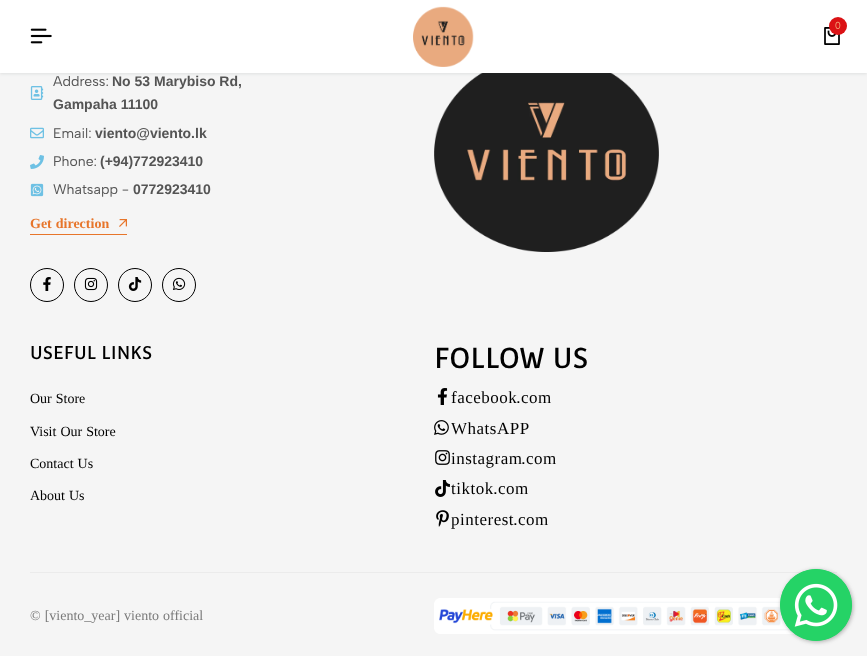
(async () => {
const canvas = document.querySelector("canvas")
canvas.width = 867
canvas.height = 656
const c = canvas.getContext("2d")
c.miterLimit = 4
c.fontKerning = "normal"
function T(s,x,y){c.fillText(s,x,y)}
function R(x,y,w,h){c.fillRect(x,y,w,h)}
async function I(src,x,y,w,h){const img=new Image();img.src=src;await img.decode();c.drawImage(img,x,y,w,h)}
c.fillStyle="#f5f5f5"
R(0,0,867,656)
await I("13.png",434,73,225,179)
c.fillStyle="#2125291a"
c.filter="blur(1.5px)"
c.beginPath()
c.rect(0,1,867,73)
c.fill()
c.filter="none"
c.fillStyle="#fff"
R(0,0,867,73)
await I("1.png",413,6,61,61)
await I("2.png",824,27,16,18)
c.fillStyle="#db1215"
c.beginPath()
c.arc(838,26,9,0,7)
c.fill()
c.font="10px Content"
c.fillStyle="#f4ac7b"
T("0",835,29)
await I("3.png",30,28,22,16)
await I("4.png",30,86,14,14)
c.font="14px Albert Sans"
c.fillStyle="#545454"
T("Address:",53,86)
c.font="bold 14px Liberation Sans"
T("No 53 Marybiso Rd,",112,86)
T("Gampaha 11100",53,109)
await I("5.png",30,127,14,12)
c.font="14px Albert Sans"
T("Email:",53,138)
c.font="bold 14px Liberation Sans"
T("viento@viento.lk",95,138)
await I("6.png",30,155,14,14)
c.font="14px Albert Sans"
T("Phone:",53,166)
c.font="bold 14px Liberation Sans"
T("(+94)772923410",100,166)
await I("7.png",30,183,14,14)
c.font="14px Albert Sans"
T("Whatsapp -",53,194)
c.font="bold 14px Liberation Sans"
T("0772923410",133,194)
c.fillStyle="#e7752a"
R(30,234,97,1)
c.wordSpacing="0.5px"
c.font="bold 14px Liberation Serif"
T("Get direction",30,228)
await I("8.png",119,219,8,8)
c.beginPath()
c.arc(47,285,16.5,0,7)
c.strokeStyle="#000"
c.stroke()
await I("9.png",43,277,8,14)
c.beginPath()
c.arc(91,285,16.5,0,7)
c.stroke()
await I("10.png",84,277,14,14)
c.beginPath()
c.arc(135,285,16.5,0,7)
c.stroke()
await I("11.png",128,277,14,14)
c.beginPath()
c.arc(179,285,16.5,0,7)
c.stroke()
await I("12.png",172,277,14,13)
c.wordSpacing="0px"
c.font="18px Convergence"
c.fillStyle="#000"
T("USEFUL LINKS",30,359)
c.wordSpacing="0.5px"
c.font="14px Liberation Serif"
T("Our Store",30,403)
T("Visit Our Store",30,436)
T("Contact Us",30,468)
T("About Us",30,500)
c.wordSpacing="0px"
c.font="28px Convergence"
T("FOLLOW US",434,368)
await I("14.png",437,388,11,17)
c.letterSpacing="0.5px"
c.font="17px Liberation Serif"
T("facebook",451,403)
c.font="17px Content"
T(".",516,403)
c.font="17px Liberation Serif"
T("com",521,403)
await I("15.png",434,420,15,15)
T("WhatsAPP",451,434)
await I("16.png",435,450,15,15)
T("instagram",451,464)
c.font="17px Content"
T(".",521,464)
c.font="17px Liberation Serif"
T("com",526,464)
await I("17.png",435,480,15,17)
T("tiktok",451,494)
c.font="17px Content"
T(".",493,494)
c.font="17px Liberation Serif"
T("com",498,494)
await I("18.png",436,510,13,17)
T("pinterest",451,525)
c.font="17px Content"
T(".",513,525)
c.font="17px Liberation Serif"
T("com",518,525)
c.fillStyle="#ebebeb"
R(30,572,807,1)
c.letterSpacing="0px"
c.wordSpacing="0.5px"
c.font="14px Liberation Serif"
c.fillStyle="#7a7a7a"
T("© [viento_year] viento official",30,620)
await I("19.png",434,598,361,36)
c.fillStyle="#3c3c3c66"
c.filter="blur(2px)"
c.beginPath()
c.roundRect(781,570,72,72,36)
c.fill()
c.filter="none"
c.fillStyle="#25d366"
c.beginPath()
c.arc(816,605,36,0,7)
c.fill()
await I("20.png",780,569,72,72)
})()
